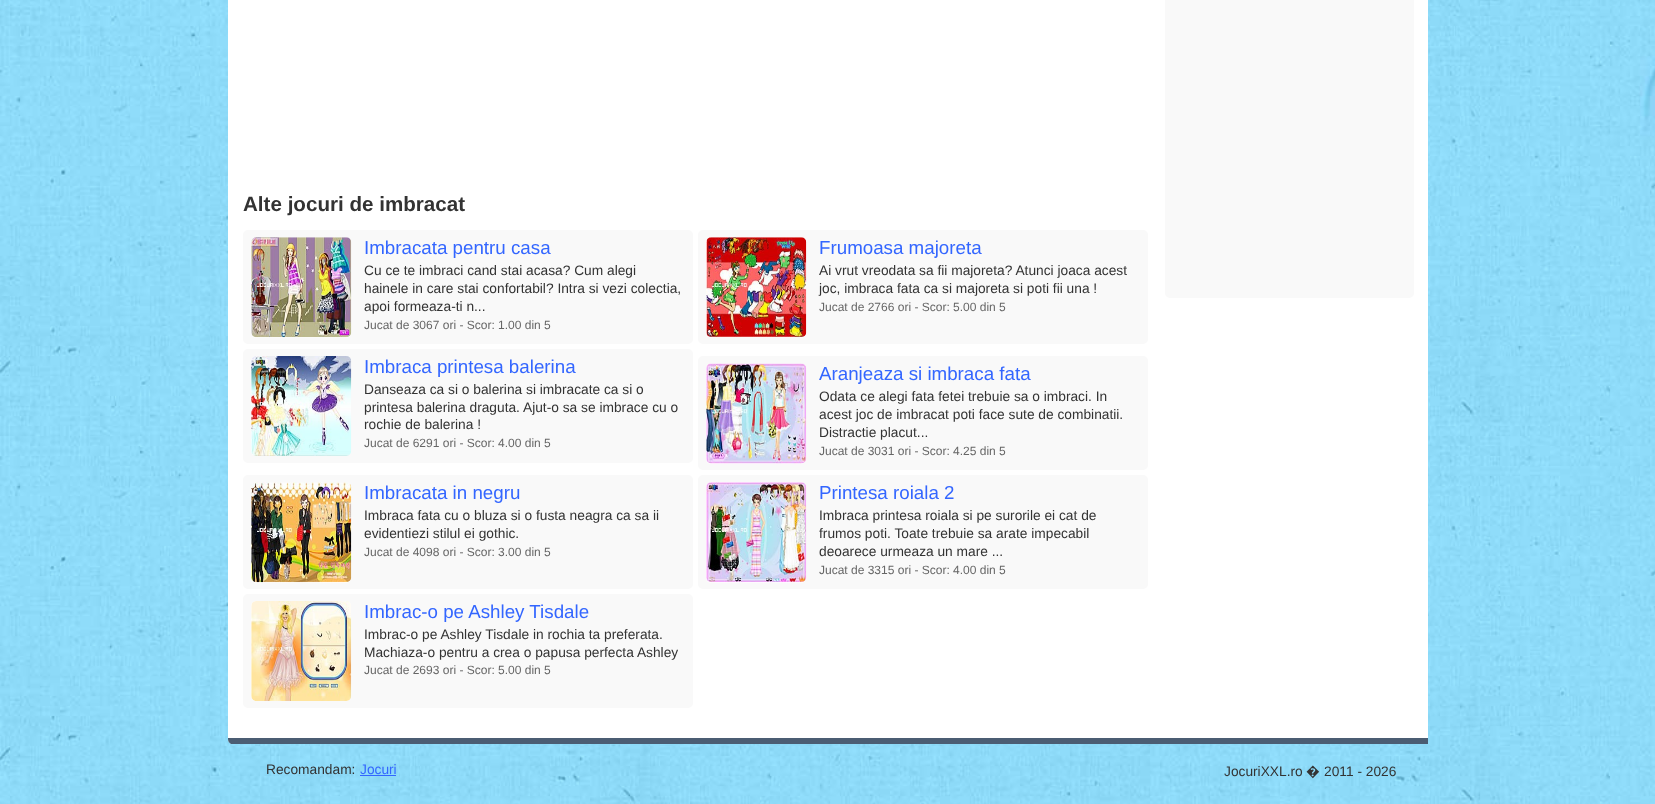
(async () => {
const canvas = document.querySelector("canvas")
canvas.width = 1655
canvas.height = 804
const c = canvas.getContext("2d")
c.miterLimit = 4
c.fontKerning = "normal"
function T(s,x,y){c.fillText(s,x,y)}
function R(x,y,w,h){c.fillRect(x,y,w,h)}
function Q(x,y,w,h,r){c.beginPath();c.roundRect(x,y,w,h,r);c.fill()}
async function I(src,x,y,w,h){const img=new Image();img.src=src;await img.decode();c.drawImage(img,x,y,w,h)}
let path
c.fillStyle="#fff"
R(0,0,1655,804)
await I("1.png",0,0,1655,804)
path = new Path2D("M233-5h1195v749h-1195c-3 0-5-2-5-5v-739c0-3 2-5 5-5z")
c.fill(path)
c.save()
c.beginPath()
c.rect(228,0,1200,753)
c.clip()
c.fillStyle="#4b5d73"
path = new Path2D("M1452 739v-1h-1224v1c0 2 1 4 3 5h1218c2-1 3-3 3-5z")
c.fill(path)
c.restore()
c.fillStyle="#f9f9f9"
Q(1165,-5,249,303,5)
c.font="bold 20.6px Liberation Sans"
c.fillStyle="#333"
T("Alte jocuri de imbracat",243,211)
c.fillStyle="#f9f9f9"
Q(243,230,450,114,5)
c.fillStyle="#fff"
Q(251,238,100,100,5)
await I("2.png",251,237,101,101)
c.font="18.75px Liberation Sans"
c.fillStyle="#36f"
T("Imbracata pentru casa",364,254)
c.font="13.75px Liberation Sans"
c.fillStyle="#333"
T("Cu ce te imbraci cand stai acasa? Cum alegi",364,275)
T("hainele in care stai confortabil? Intra si vezi colectia,",364,293)
T("apoi formeaza-ti n...",364,311)
c.font="12px Liberation Sans"
c.fillStyle="#666"
T("Jucat de 3067 ori - Scor: 1.00 din 5",364,329)
c.fillStyle="#f9f9f9"
Q(698,230,450,114,5)
c.fillStyle="#fff"
Q(706,238,100,100,5)
await I("3.png",706,237,101,101)
c.font="18.75px Liberation Sans"
c.fillStyle="#36f"
T("Frumoasa majoreta",819,254)
c.font="13.75px Liberation Sans"
c.fillStyle="#333"
T("Ai vrut vreodata sa fii majoreta? Atunci joaca acest",819,275)
T("joc, imbraca fata ca si majoreta si poti fii una !",819,293)
c.font="12px Liberation Sans"
c.fillStyle="#666"
T("Jucat de 2766 ori - Scor: 5.00 din 5",819,311)
c.fillStyle="#f9f9f9"
Q(243,349,450,114,5)
c.fillStyle="#fff"
Q(251,356,100,100,5)
await I("4.png",251,356,101,100)
c.font="18.75px Liberation Sans"
c.fillStyle="#36f"
T("Imbraca printesa balerina",364,373)
c.font="13.75px Liberation Sans"
c.fillStyle="#333"
T("Danseaza ca si o balerina si imbracate ca si o",364,394)
T("printesa balerina draguta. Ajut-o sa se imbrace cu o",364,412)
T("rochie de balerina !",364,429)
c.font="12px Liberation Sans"
c.fillStyle="#666"
T("Jucat de 6291 ori - Scor: 4.00 din 5",364,447)
c.fillStyle="#f9f9f9"
Q(698,356,450,114,5)
c.fillStyle="#fff"
Q(706,364,100,100,5)
await I("5.png",706,363,101,101)
c.font="18.75px Liberation Sans"
c.fillStyle="#36f"
T("Aranjeaza si imbraca fata",819,380)
c.font="13.75px Liberation Sans"
c.fillStyle="#333"
T("Odata ce alegi fata fetei trebuie sa o imbraci. In",819,401)
T("acest joc de imbracat poti face sute de combinatii.",819,419)
T("Distractie placut...",819,437)
c.font="12px Liberation Sans"
c.fillStyle="#666"
T("Jucat de 3031 ori - Scor: 4.25 din 5",819,455)
c.fillStyle="#f9f9f9"
Q(243,475,450,114,5)
c.fillStyle="#fff"
Q(251,483,100,100,5)
await I("6.png",251,482,101,101)
c.font="18.75px Liberation Sans"
c.fillStyle="#36f"
T("Imbracata in negru",364,499)
c.font="13.75px Liberation Sans"
c.fillStyle="#333"
T("Imbraca fata cu o bluza si o fusta neagra ca sa ii",364,520)
T("evidentiezi stilul ei gothic.",364,538)
c.font="12px Liberation Sans"
c.fillStyle="#666"
T("Jucat de 4098 ori - Scor: 3.00 din 5",364,556)
c.fillStyle="#f9f9f9"
Q(698,475,450,114,5)
c.fillStyle="#fff"
Q(706,483,100,100,5)
await I("7.png",706,482,101,101)
c.font="18.75px Liberation Sans"
c.fillStyle="#36f"
T("Printesa roiala 2",819,499)
c.font="13.75px Liberation Sans"
c.fillStyle="#333"
T("Imbraca printesa roiala si pe surorile ei cat de",819,520)
T("frumos poti. Toate trebuie sa arate impecabil",819,538)
T("deoarece urmeaza un mare ...",819,556)
c.font="12px Liberation Sans"
c.fillStyle="#666"
T("Jucat de 3315 ori - Scor: 4.00 din 5",819,574)
c.fillStyle="#f9f9f9"
Q(243,594,450,114,5)
c.fillStyle="#fff"
Q(251,601,100,100,5)
await I("8.png",251,601,101,100)
c.font="18.75px Liberation Sans"
c.fillStyle="#36f"
T("Imbrac-o pe Ashley Tisdale",364,618)
c.font="13.75px Liberation Sans"
c.fillStyle="#333"
T("Imbrac-o pe Ashley Tisdale in rochia ta preferata.",364,639)
T("Machiaza-o pentru a crea o papusa perfecta Ashley",364,657)
c.font="12px Liberation Sans"
c.fillStyle="#666"
T("Jucat de 2693 ori - Scor: 5.00 din 5",364,674)
c.font="13.75px Liberation Sans"
c.fillStyle="#333"
T("Recomandam:",266,774)
c.fillStyle="#36f"
T("Jocuri",360,774)
R(360,775,36,1)
c.fillStyle="#333"
T("JocuriXXL.ro",1224,776)
c.font="13.75px Noto Sans"
T("�",1306,776)
c.font="13.75px Liberation Sans"
T("2011 - 2026",1324,776)
})()
